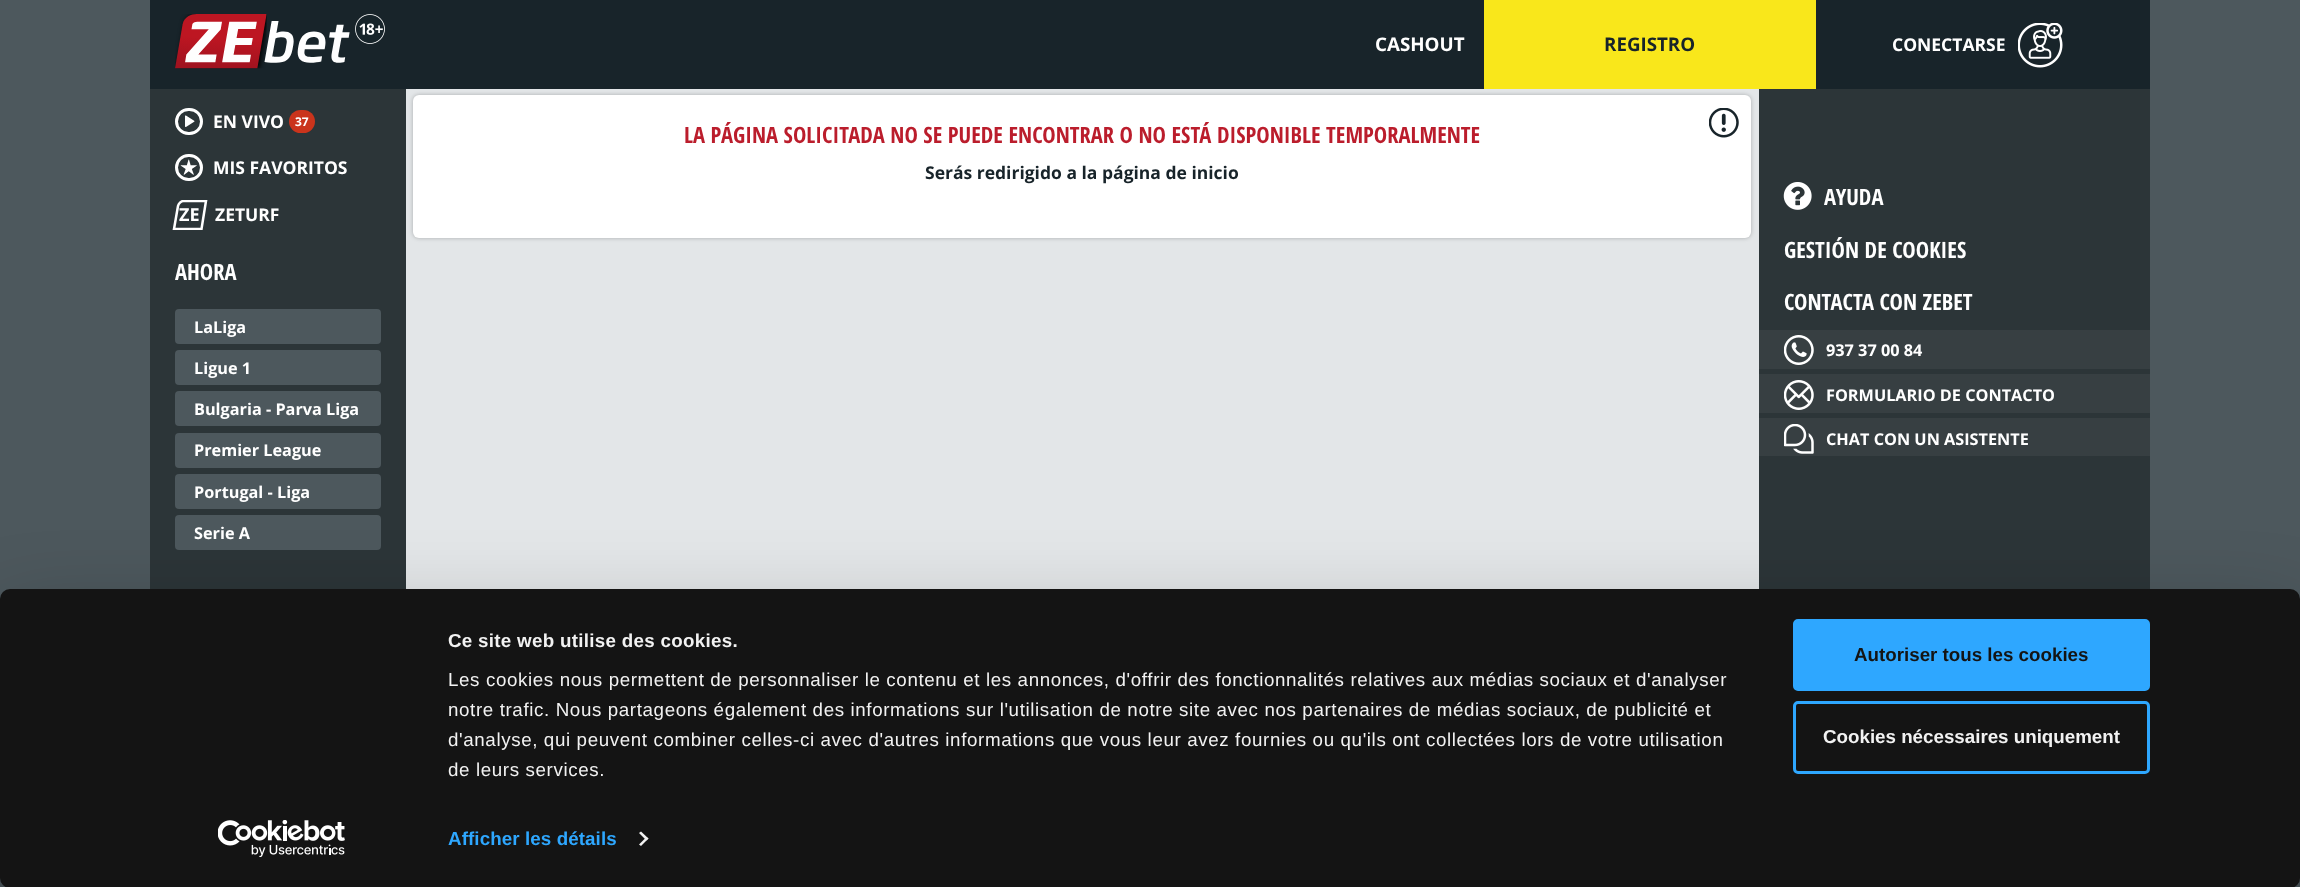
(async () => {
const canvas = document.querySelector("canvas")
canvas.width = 2300
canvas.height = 887
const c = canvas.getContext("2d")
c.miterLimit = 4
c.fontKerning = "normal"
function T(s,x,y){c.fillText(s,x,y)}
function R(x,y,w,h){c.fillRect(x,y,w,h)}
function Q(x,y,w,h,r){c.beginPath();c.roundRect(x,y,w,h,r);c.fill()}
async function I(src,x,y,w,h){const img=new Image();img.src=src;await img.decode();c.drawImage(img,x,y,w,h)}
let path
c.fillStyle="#4d585d"
R(0,0,2300,887)
c.fillStyle="#18242a"
R(150,0,2000,89)
await I("1.png",175,14,175,55)
await I("2.png",355,14,30,30)
c.font="bold 18.75px Open Sans"
c.fillStyle="#fff"
T("CASHOUT",1375,51)
c.fillStyle="#f9e71b"
R(1484,0,332,89)
c.fillStyle="#18242a"
T("REGISTRO",1604,51)
c.font="bold 17.5px Open Sans"
c.fillStyle="#fff"
T("CONECTARSE",1892,51)
await I("3.png",2018,23,45,45)
c.fillStyle="#2c3538"
R(150,89,256,500)
await I("4.png",185,115,10,12)
c.beginPath()
c.roundRect(176.5,109.5,25,24,12)
c.strokeStyle="#fff"
c.lineWidth=3
c.stroke()
c.fillStyle="#fff"
T("EN VIVO",213,128)
c.fillStyle="#ca341c"
Q(289,110,26,23,11.5)
c.font="bold 12px Open Sans"
c.fillStyle="#fff"
T("37",295,126)
await I("5.png",180,159,17,16)
c.beginPath()
c.roundRect(176.5,155.5,25,24,12)
c.stroke()
c.font="bold 17.5px Open Sans"
T("MIS FAVORITOS",213,174)
c.save()
c.beginPath()
c.rect(150,200,256,30)
c.clip()
path = new Path2D("M183.5 201h22.5l-4.5 28h-27.5l4-23c.5-2.5 3-5 5.5-5z")
c.lineWidth=2.5
c.stroke(path)
c.restore()
c.font="bold 18px Open Sans"
T("ZE",179,221)
c.font="bold 17.5px Open Sans"
T("ZETURF",215,221)
c.font="bold 22.5px Open Sans Condensed"
T("AHORA",175,280)
c.fillStyle="#4d585d"
Q(175,309,206,35,4)
c.font="bold 16.25px Open Sans"
c.fillStyle="#fff"
T("LaLiga",194,333)
c.fillStyle="#4d585d"
Q(175,350,206,35,4)
c.fillStyle="#fff"
T("Ligue 1",194,374)
c.fillStyle="#4d585d"
Q(175,391,206,35,4)
c.fillStyle="#fff"
T("Bulgaria - Parva Liga",194,415)
c.fillStyle="#4d585d"
Q(175,433,206,35,4)
c.fillStyle="#fff"
T("Premier League",194,456)
c.fillStyle="#4d585d"
Q(175,474,206,35,4)
c.fillStyle="#fff"
T("Portugal - Liga",194,498)
c.fillStyle="#4d585d"
Q(175,515,206,35,4)
c.fillStyle="#fff"
T("Serie A",194,539)
c.fillStyle="#e3e6e8"
R(406,89,1353,500)
c.fillStyle="#00000040"
c.filter="blur(2px)"
c.beginPath()
c.roundRect(413,95,1338,143,6)
c.fill()
c.filter="none"
c.fillStyle="#fff"
Q(413,95,1338,143,6)
await I("6.png",1709,108,30,30)
c.font="bold 22.5px Open Sans Condensed"
c.fillStyle="#bb1d2c"
T("LA PÁGINA SOLICITADA NO SE PUEDE ENCONTRAR O NO ESTÁ DISPONIBLE TEMPORALMENTE",684,143)
c.font="bold 17.5px Open Sans"
c.fillStyle="#18242a"
T("Serás redirigido a la página de inicio",925,179)
c.fillStyle="#2c3538"
R(1759,89,391,500)
await I("7.png",1783,182,29,28)
c.font="bold 22.5px Open Sans Condensed"
c.fillStyle="#fff"
T("AYUDA",1824,205)
T("GESTIÓN DE COOKIES",1784,258)
T("CONTACTA CON ZEBET",1784,310)
c.fillStyle="#373f42"
R(1759,330,391,39)
await I("8.png",1784,335,30,30)
c.font="bold 16.25px Open Sans"
c.fillStyle="#fff"
T("937 37 00 84",1826,356)
c.fillStyle="#373f42"
R(1759,374,391,39)
await I("9.png",1784,380,30,30)
c.fillStyle="#fff"
T("FORMULARIO DE CONTACTO",1826,401)
c.fillStyle="#373f42"
R(1759,418,391,38)
await I("10.png",1784,424,30,30)
c.fillStyle="#fff"
T("CHAT CON UN ASISTENTE",1826,445)
c.fillStyle="#0000004d"
c.filter="blur(44px)"
c.beginPath()
c.roundRect(0,626,2300,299,10)
c.fill()
c.filter="none"
c.fillStyle="#141414"
Q(0,589,2300,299,10)
c.letterSpacing="0.3px"
c.font="bold 18.75px Liberation Sans"
c.fillStyle="#f2f2f2"
T("Ce site web utilise des cookies.",448,647)
c.letterSpacing="0.62px"
c.font="18.75px Liberation Sans"
T("Les cookies nous permettent de personnaliser le contenu et les annonces, d'offrir des fonctionnalités relatives aux médias sociaux et d'analyser",448,686)
T("notre trafic. Nous partageons également des informations sur l'utilisation de notre site avec nos partenaires de médias sociaux, de publicité et",448,716)
T("d'analyse, qui peuvent combiner celles-ci avec d'autres informations que vous leur avez fournies ou qu'ils ont collectées lors de votre utilisation",448,746)
T("de leurs services.",448,776)
c.letterSpacing="0.1px"
c.font="bold 18.75px Liberation Sans"
c.fillStyle="#2ea7ff"
T("Afficher les détails",448,845)
c.fillStyle="#f2f2f2"
path = new Path2D("M641 831.5l7.5 7l-2 2l-7.5-7.5z")
c.fill(path)
path = new Path2D("M646.5 837l2 1.5l-7.5 7.5l-2-1.5z")
c.fill(path)
c.fillStyle="#2ea7ff"
c.beginPath()
c.roundRect(1794.5,620.5,354,69,3.5)
c.fill()
c.strokeStyle="#2ea7ff"
c.stroke()
c.letterSpacing="0px"
c.fillStyle="#141414"
T("Autoriser tous les cookies",1854,661)
c.beginPath()
c.roundRect(1794.5,702.5,354,70,3.5)
c.stroke()
c.fillStyle="#f2f2f2"
T("Cookies nécessaires uniquement",1823,743)
await I("11.png",218,820,127,38)
})()
